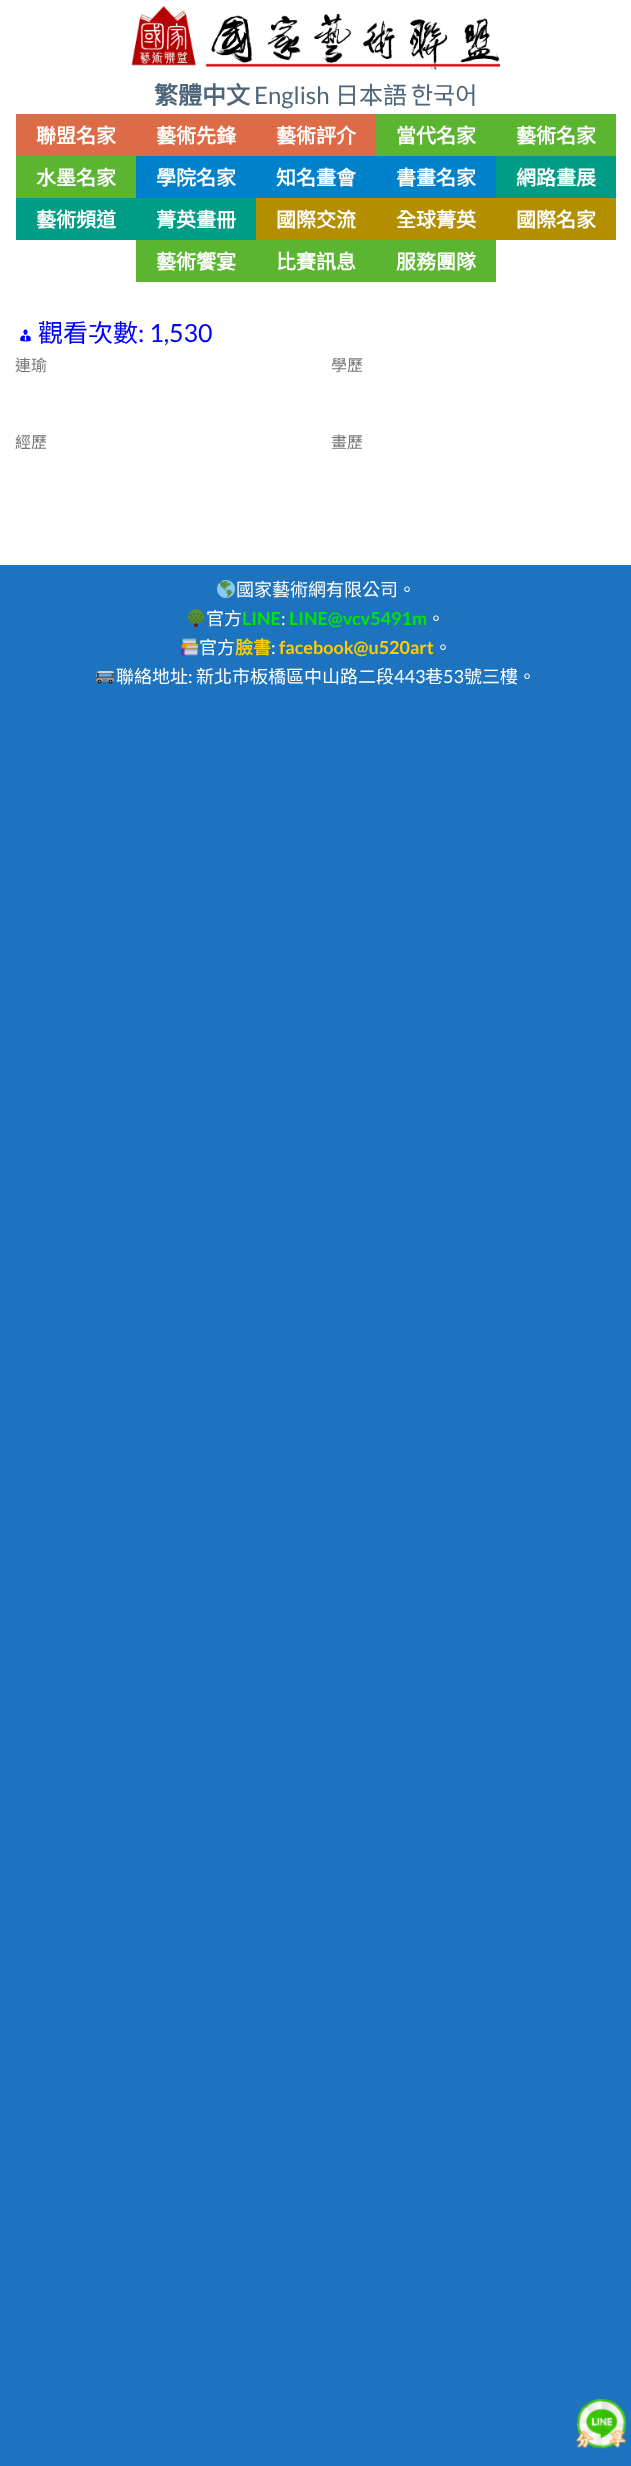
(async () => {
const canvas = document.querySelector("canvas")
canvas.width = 631
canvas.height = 2466
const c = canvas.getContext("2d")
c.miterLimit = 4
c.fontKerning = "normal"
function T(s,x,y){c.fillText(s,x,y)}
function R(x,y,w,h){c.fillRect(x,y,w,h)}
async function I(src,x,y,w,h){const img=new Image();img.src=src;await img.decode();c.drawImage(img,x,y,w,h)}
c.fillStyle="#1e73be"
R(0,0,631,2466)
c.fillStyle="#fff"
R(0,0,631,565)
await I("1.png",131,5,369,66)
c.font="bold 24px Noto Sans CJK TC"
c.fillStyle="#4e657b"
T("繁體中文",154,104)
c.font="24px Lato"
T("English",254,104)
c.font="24px Noto Sans CJK TC"
T("日本語",335,104)
T("한국어",411,104)
c.fillStyle="#dd6b47"
R(16,114,360,42)
c.font="bold 20px Noto Sans CJK TC"
c.fillStyle="#fff"
T("聯盟名家",36,143)
T("藝術先鋒",156,143)
T("藝術評介",276,143)
c.fillStyle="#5bb531"
R(376,114,240,42)
c.fillStyle="#fff"
T("當代名家",396,143)
T("藝術名家",516,143)
c.fillStyle="#5bb531"
R(16,156,120,42)
c.fillStyle="#fff"
T("水墨名家",36,185)
c.fillStyle="#0081cc"
R(136,156,360,42)
c.fillStyle="#fff"
T("學院名家",156,185)
T("知名畫會",276,185)
T("書畫名家",396,185)
c.fillStyle="#009c86"
R(496,156,120,42)
c.fillStyle="#fff"
T("網路畫展",516,185)
c.fillStyle="#009c86"
R(16,198,240,42)
c.fillStyle="#fff"
T("藝術頻道",36,227)
T("菁英畫冊",156,227)
c.fillStyle="#b38f00"
R(256,198,360,42)
c.fillStyle="#fff"
T("國際交流",276,227)
T("全球菁英",396,227)
T("國際名家",516,227)
c.fillStyle="#5bb531"
R(136,240,360,42)
c.fillStyle="#fff"
T("藝術饗宴",156,269)
T("比賽訊息",276,269)
T("服務團隊",396,269)
await I("2.png",20,329,11,13)
c.font="25px Noto Sans CJK TC"
c.fillStyle="#00f"
T("觀看次數",38,342)
c.font="25px Lato"
T(": 1,530",138,342)
c.font="16px Noto Sans CJK TC"
c.fillStyle="#777"
T("連瑜",15,371)
T("學歷",331,371)
T("經歷",15,448)
T("畫歷",331,448)
await I("3.png",217,580,18,18)
c.font="18px Noto Sans CJK TC"
c.fillStyle="#fff"
T("國家藝術網有限公司。",236,596)
await I("4.png",188,609,16,18)
T("官方",206,625)
c.font="bold 18px Lato"
c.fillStyle="#00e600"
T("LINE",242,625)
c.font="18px Lato"
c.fillStyle="#fff"
T(":",281,625)
c.font="bold 18px Lato"
c.fillStyle="#00e600"
T("LINE@vcv5491m",289,625)
c.font="18px Noto Sans CJK TC"
c.fillStyle="#fff"
T("。",427,625)
await I("5.png",180,638,18,18)
T("官方",199,654)
c.font="bold 18px Noto Sans CJK TC"
c.fillStyle="#fc0"
T("臉書",235,654)
c.font="18px Lato"
c.fillStyle="#fff"
T(":",271,654)
c.font="bold 18px Lato"
c.fillStyle="#fc0"
T("facebook@u520art",279,654)
c.font="18px Noto Sans CJK TC"
c.fillStyle="#fff"
T("。",434,654)
await I("6.png",96,671,18,13)
T("聯絡地址",116,683)
c.font="18px Lato"
T(":",188,683)
c.font="18px Noto Sans CJK TC"
T("新北市板橋區中山路二段",196,683)
c.font="18px Lato"
T("443",394,683)
c.font="18px Noto Sans CJK TC"
T("巷",425,683)
c.font="18px Lato"
T("53",443,683)
c.font="18px Noto Sans CJK TC"
T("號三樓。",464,683)
await I("7.png",576,2399,50,50)
})()
